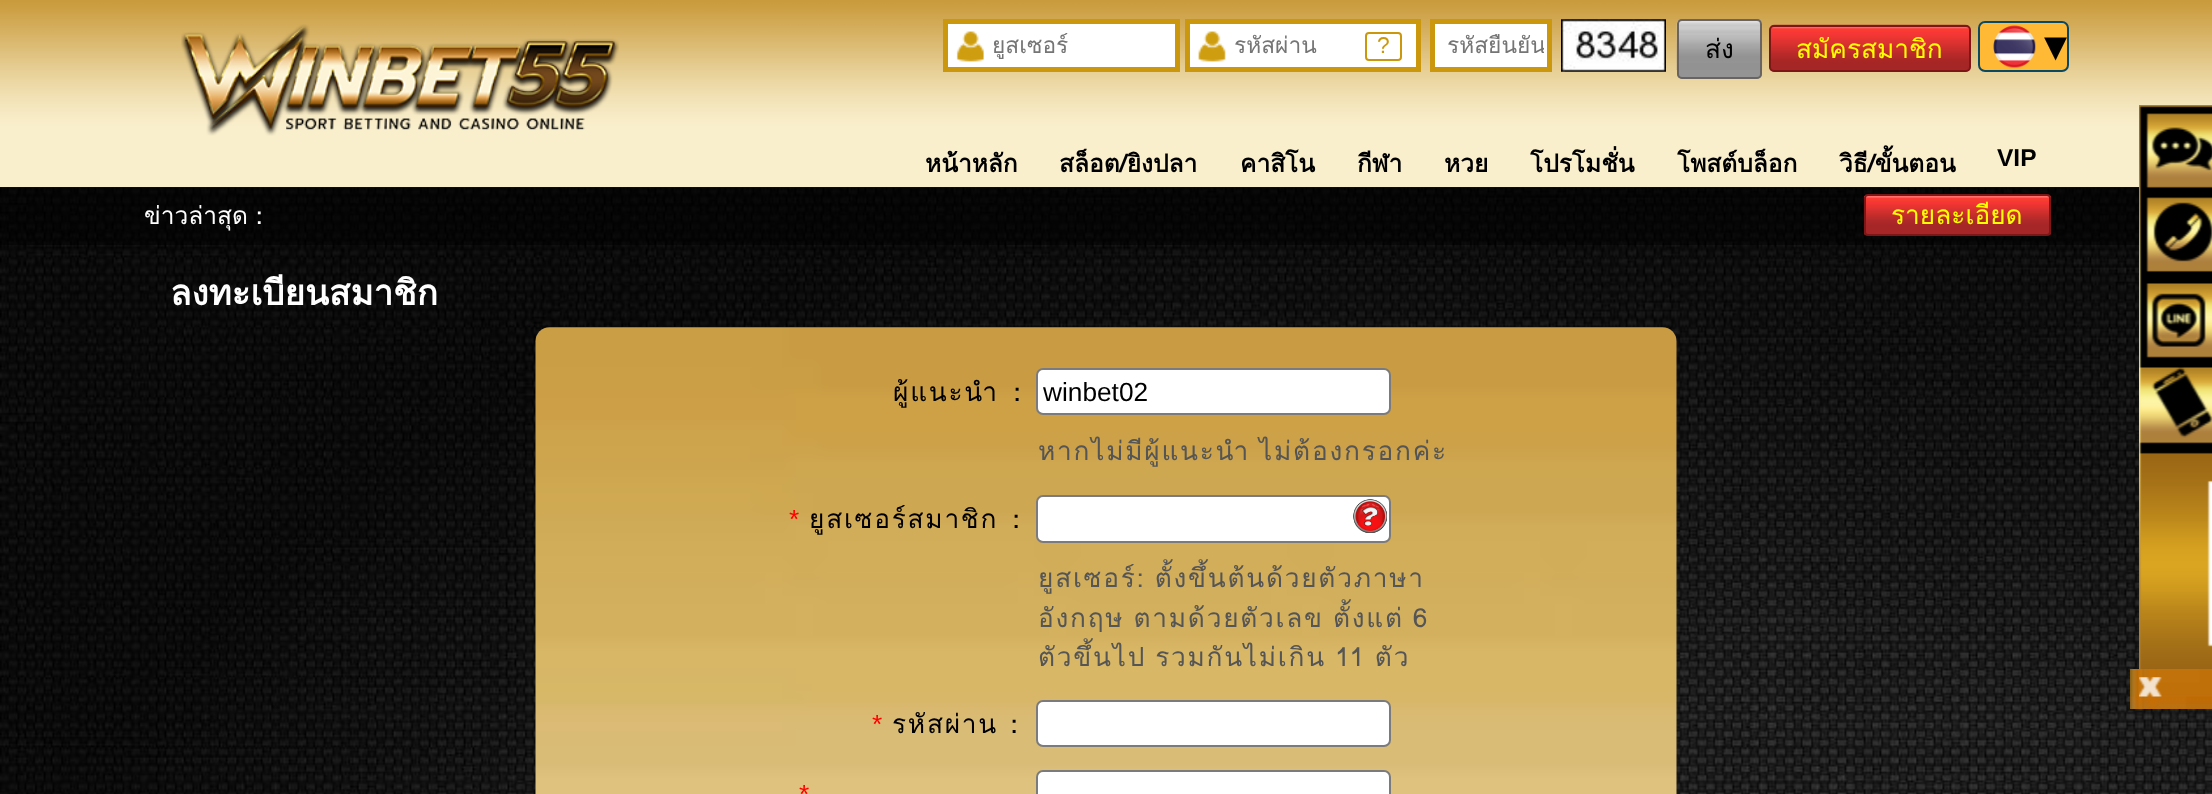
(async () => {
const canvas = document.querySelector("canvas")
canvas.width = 2212
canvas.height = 794
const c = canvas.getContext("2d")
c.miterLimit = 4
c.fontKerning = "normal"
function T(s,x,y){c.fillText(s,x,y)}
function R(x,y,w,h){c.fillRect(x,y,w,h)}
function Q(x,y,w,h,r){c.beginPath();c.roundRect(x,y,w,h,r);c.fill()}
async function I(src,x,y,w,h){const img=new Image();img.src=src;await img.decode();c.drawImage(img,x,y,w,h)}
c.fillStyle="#fff"
R(0,0,2212,794)
await I("1.png",0,187,2139,1)
await I("2.png",0,0,2212,188)
await I("3.png",181,24,438,112)
R(948,24,227,43)
await I("4.png",956,31,28,31)
c.strokeStyle="#cb980d"
c.lineWidth=5
c.strokeRect(945.5,21.5,232,48)
c.save()
c.beginPath()
c.rect(992,28,179,37)
c.clip()
c.font="22.75px Loma"
c.fillStyle="#757575"
T("ยูสเซอร์",992,53)
c.restore()
R(1190,24,226,43)
await I("5.png",1198,31,28,31)
c.strokeRect(1187.5,21.5,231,48)
c.font="22.75px Loma"
c.fillStyle="#757575"
T("รหัสผ่าน",1234,53)
c.beginPath()
c.roundRect(1366,33,35,27,3)
c.lineWidth=2
c.stroke()
c.font="22.75px Liberation Sans"
c.fillStyle="#cb980d"
T("?",1377,53)
c.fillStyle="#fff"
c.beginPath()
c.rect(1432.5,21.5,117,48)
c.fill()
c.lineWidth=5
c.stroke()
c.save()
c.beginPath()
c.rect(1447,28,97,37)
c.clip()
c.font="22.75px Loma"
c.fillStyle="#757575"
T("รหัสยืนยัน",1447,53)
c.restore()
await I("6.png",1561,19,105,53)
await I("7.png",1769,24,202,48)
c.fillStyle="#949494"
Q(1677,19,85,60,5)
await I("8.png",1676,21,87,49)
c.beginPath()
c.roundRect(1678,20,83,58,4)
c.strokeStyle="#686464"
c.lineWidth=2
c.stroke()
c.font="26.25px Loma"
c.fillStyle="#000"
T("ส่ง",1705,58)
c.beginPath()
c.roundRect(1770,26,200,45,4)
c.strokeStyle="#7d1717"
c.stroke()
c.fillStyle="#ff0"
T("สมัครสมาชิก",1796,58)
c.fillStyle="#ffb935"
c.beginPath()
c.roundRect(1979,22,89,49,6)
c.fill()
c.strokeStyle="#094968"
c.stroke()
await I("9.png",1993,25,43,43)
c.font="46px DejaVu Sans"
c.fillStyle="#000"
T("▾",2044,61)
c.font="bold 24.5px Loma"
T("หน้าหลัก",925,172)
T("สล็อต/ยิงปลา",1059,172)
T("คาสิโน",1240,172)
T("กีฬา",1357,172)
T("หวย",1444,172)
T("โปรโมชั่น",1530,172)
T("โพสต์บล็อก",1677,172)
T("วิธี/ขั้นตอน",1839,172)
c.font="bold 24.5px Liberation Sans"
T("VIP",1997,166)
await I("11.png",0,187,2212,607)
c.fillStyle="#00000080"
R(0,187,2139,58)
c.font="24.5px Loma"
c.fillStyle="#fff"
T("ข่าวล่าสุด",144,224)
c.font="500 24.5px WenQuanYi Zen Hei"
T("：",247,224)
await I("10.png",1863,196,188,39)
c.beginPath()
c.roundRect(1865,195,185,40,3)
c.strokeStyle="#7d1717"
c.stroke()
c.font="26.25px Loma"
c.fillStyle="#ff0"
T("รายละเอียด",1891,224)
c.font="bold 35px Loma"
c.fillStyle="#fff"
T("ลงทะเบียนสมาชิก",170,305)
await I("12.png",535,327,1142,467)
c.letterSpacing="1.75px"
c.font="26.25px Loma"
c.fillStyle="#000"
T("ผู้แนะนำ",893,401)
c.font="500 26.25px WenQuanYi Zen Hei"
T("：",1004,401)
c.fillStyle="#fff"
c.beginPath()
c.roundRect(1037,369,353,45,6)
c.fill()
c.strokeStyle="#7b7b7d"
c.stroke()
c.letterSpacing="0px"
c.font="26.25px Liberation Sans"
c.fillStyle="#000"
T("winbet02",1043,401)
c.letterSpacing="1.75px"
c.wordSpacing="-1.5px"
c.font="26.25px Loma"
c.fillStyle="#555"
T("หากไม่มีผู้แนะนำ ไม่ต้องกรอกค่ะ",1038,460)
c.wordSpacing="0px"
c.font="26.25px Liberation Sans"
c.fillStyle="#f00"
T("*",789,528)
c.font="26.25px Loma"
c.fillStyle="#000"
T("ยูสเซอร์สมาชิก",809,528)
c.font="500 26.25px WenQuanYi Zen Hei"
T("：",1003,528)
c.fillStyle="#fff"
c.beginPath()
c.roundRect(1037,496,353,46,6)
c.fill()
c.stroke()
await I("13.png",1353,499,34,34)
c.wordSpacing="-1.5px"
c.font="26.25px Loma"
c.fillStyle="#555"
T("ยูสเซอร์: ตั้งขึ้นต้นด้วยตัวภาษา",1038,587)
T("อังกฤษ ตามด้วยตัวเลข ตั้งแต่ 6",1038,627)
T("ตัวขึ้นไป รวมกันไม่เกิน 11 ตัว",1038,666)
c.wordSpacing="0px"
c.font="26.25px Liberation Sans"
c.fillStyle="#f00"
T("*",872,733)
c.font="26.25px Loma"
c.fillStyle="#000"
T("รหัสผ่าน",892,733)
c.font="500 26.25px WenQuanYi Zen Hei"
T("：",1001,733)
c.fillStyle="#fff"
c.beginPath()
c.roundRect(1037,701,353,45,6)
c.fill()
c.stroke()
c.font="26.25px Liberation Sans"
c.fillStyle="#f00"
T("*",799,803)
c.fillStyle="#fff"
c.beginPath()
c.roundRect(1037,771,353,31,6)
c.fill()
c.stroke()
await I("14.png",2139,105,73,564)
await I("15.png",2130,669,82,40)
await I("16.png",2139,677,23,20)
})()
